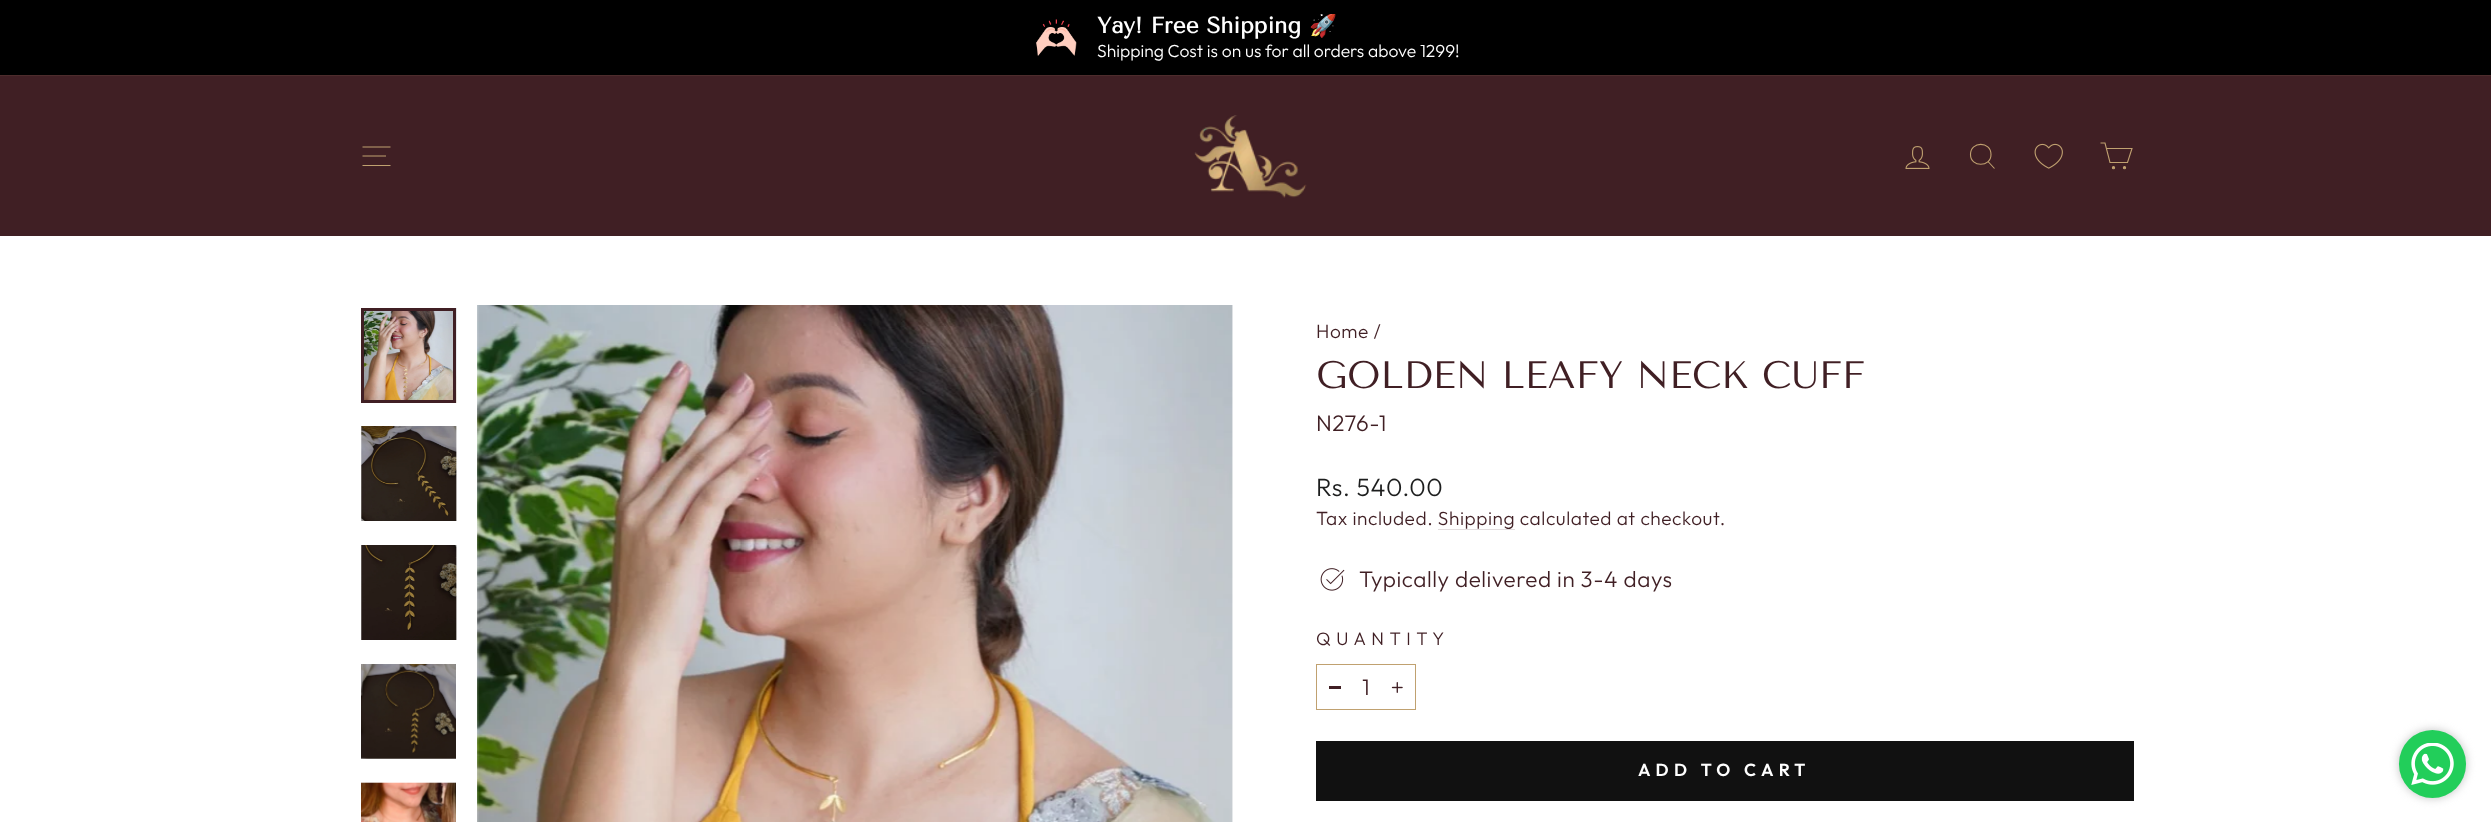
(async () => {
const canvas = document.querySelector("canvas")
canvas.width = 2491
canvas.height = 822
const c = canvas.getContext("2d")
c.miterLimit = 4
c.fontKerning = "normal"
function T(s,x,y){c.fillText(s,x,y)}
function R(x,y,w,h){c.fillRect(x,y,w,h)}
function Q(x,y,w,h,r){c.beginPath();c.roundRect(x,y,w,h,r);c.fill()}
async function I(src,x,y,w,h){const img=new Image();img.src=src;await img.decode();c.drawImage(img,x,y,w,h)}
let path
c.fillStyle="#fff"
R(0,0,2491,822)
c.fillStyle="#000"
R(0,0,2491,75)
await I("1.png",1036,19,41,37)
c.font="bold 22.5px Tenor Sans"
c.fillStyle="#fff"
T("Yay! Free Shipping",1097,33)
c.save()
c.beginPath()
c.rect(1098,14,362,47)
c.clip()
c.font="bold 22.5px Noto Color Emoji"
T("🚀",1309,33)
c.restore()
c.font="300 17.5px Outfit"
T("Shipping Cost is on us for all orders above 1299!",1097,57)
c.fillStyle="#401f24"
R(0,76,2491,160)
c.fillStyle="#4d2c2c"
R(0,75,2491,1)
path = new Path2D("M362.5 147h28m-28 9h23.5m-23.5 9.5h28")
c.strokeStyle="#c0a170"
c.lineWidth=1.1
c.stroke(path)
await I("2.png",1194,115,113,83)
await I("3.png",1905,146,25,23)
path = new Path2D("M1991 154.5c0 13-20.5 13-20.5 0c0-13.5 20.5-13.5 20.5 0zm3.5 14l-6.5-7")
c.stroke(path)
await I("4.png",2034,143,29,26)
path = new Path2D("M2106.5 148.5h25.5l-4.5 14h-17.5l-5-19.5h-4.5")
c.stroke(path)
c.fillStyle="#c0a170"
c.beginPath()
c.arc(2113.5,167.7,1.1,0,7)
c.fill()
c.stroke()
c.beginPath()
c.arc(2124.5,167.7,1.1,0,7)
c.fill()
c.stroke()
await I("5.png",364,308,93,95)
c.strokeStyle="#401f24"
c.lineWidth=3
c.strokeRect(362.5,309.5,92,92)
await I("6.png",361,426,96,95)
await I("7.png",361,545,96,95)
await I("8.png",361,664,95,95)
await I("9.png",361,782,95,40)
await I("10.png",477,305,756,517)
c.letterSpacing="0.55px"
c.font="300 19.1px Outfit"
c.fillStyle="#401f24"
T("Home /",1316,338)
c.letterSpacing="0px"
c.font="38.25px Tenor Sans"
T("GOLDEN LEAFY NECK CUFF",1316,388)
c.letterSpacing="0.55px"
c.font="300 22.5px Outfit"
T("N276-1",1316,431)
c.font="300 25px Outfit"
c.fillStyle="#1c1d1d"
T("Rs. 540.00",1316,496)
c.font="300 19.1px Outfit"
c.fillStyle="#401f24"
T("Tax included. Shipping calculated at checkout.",1316,525)
c.fillStyle="#e2ddde"
R(1438,529,77,1)
await I("11.png",1320,568,25,23)
c.font="300 22.5px Outfit"
c.fillStyle="#401f24"
T("Typically delivered in 3-4 days",1359,587)
c.letterSpacing="5.5px"
c.font="300 18px Outfit"
T("QUANTITY",1316,645)
c.strokeStyle="#c0a170"
c.lineWidth=1
c.strokeRect(1316.5,664.5,99,45)
R(1329,686,12,3)
c.letterSpacing="0.55px"
c.font="300 22.5px Outfit"
T("1",1362,695)
await I("12.png",1391,682,12,11)
c.fillStyle="#111"
R(1316,741,818,60)
c.letterSpacing="5.25px"
c.font="600 17.5px Outfit"
c.fillStyle="#fff"
T("ADD TO CART",1638,776)
c.fillStyle="#c2c2c2"
c.filter="blur(5px)"
c.beginPath()
c.roundRect(2399,730,67,68,33.5)
c.fill()
c.filter="none"
c.fillStyle="#22ce5a"
Q(2399,730,67,68,33.5)
await I("13.png",2411,743,43,42)
})()
